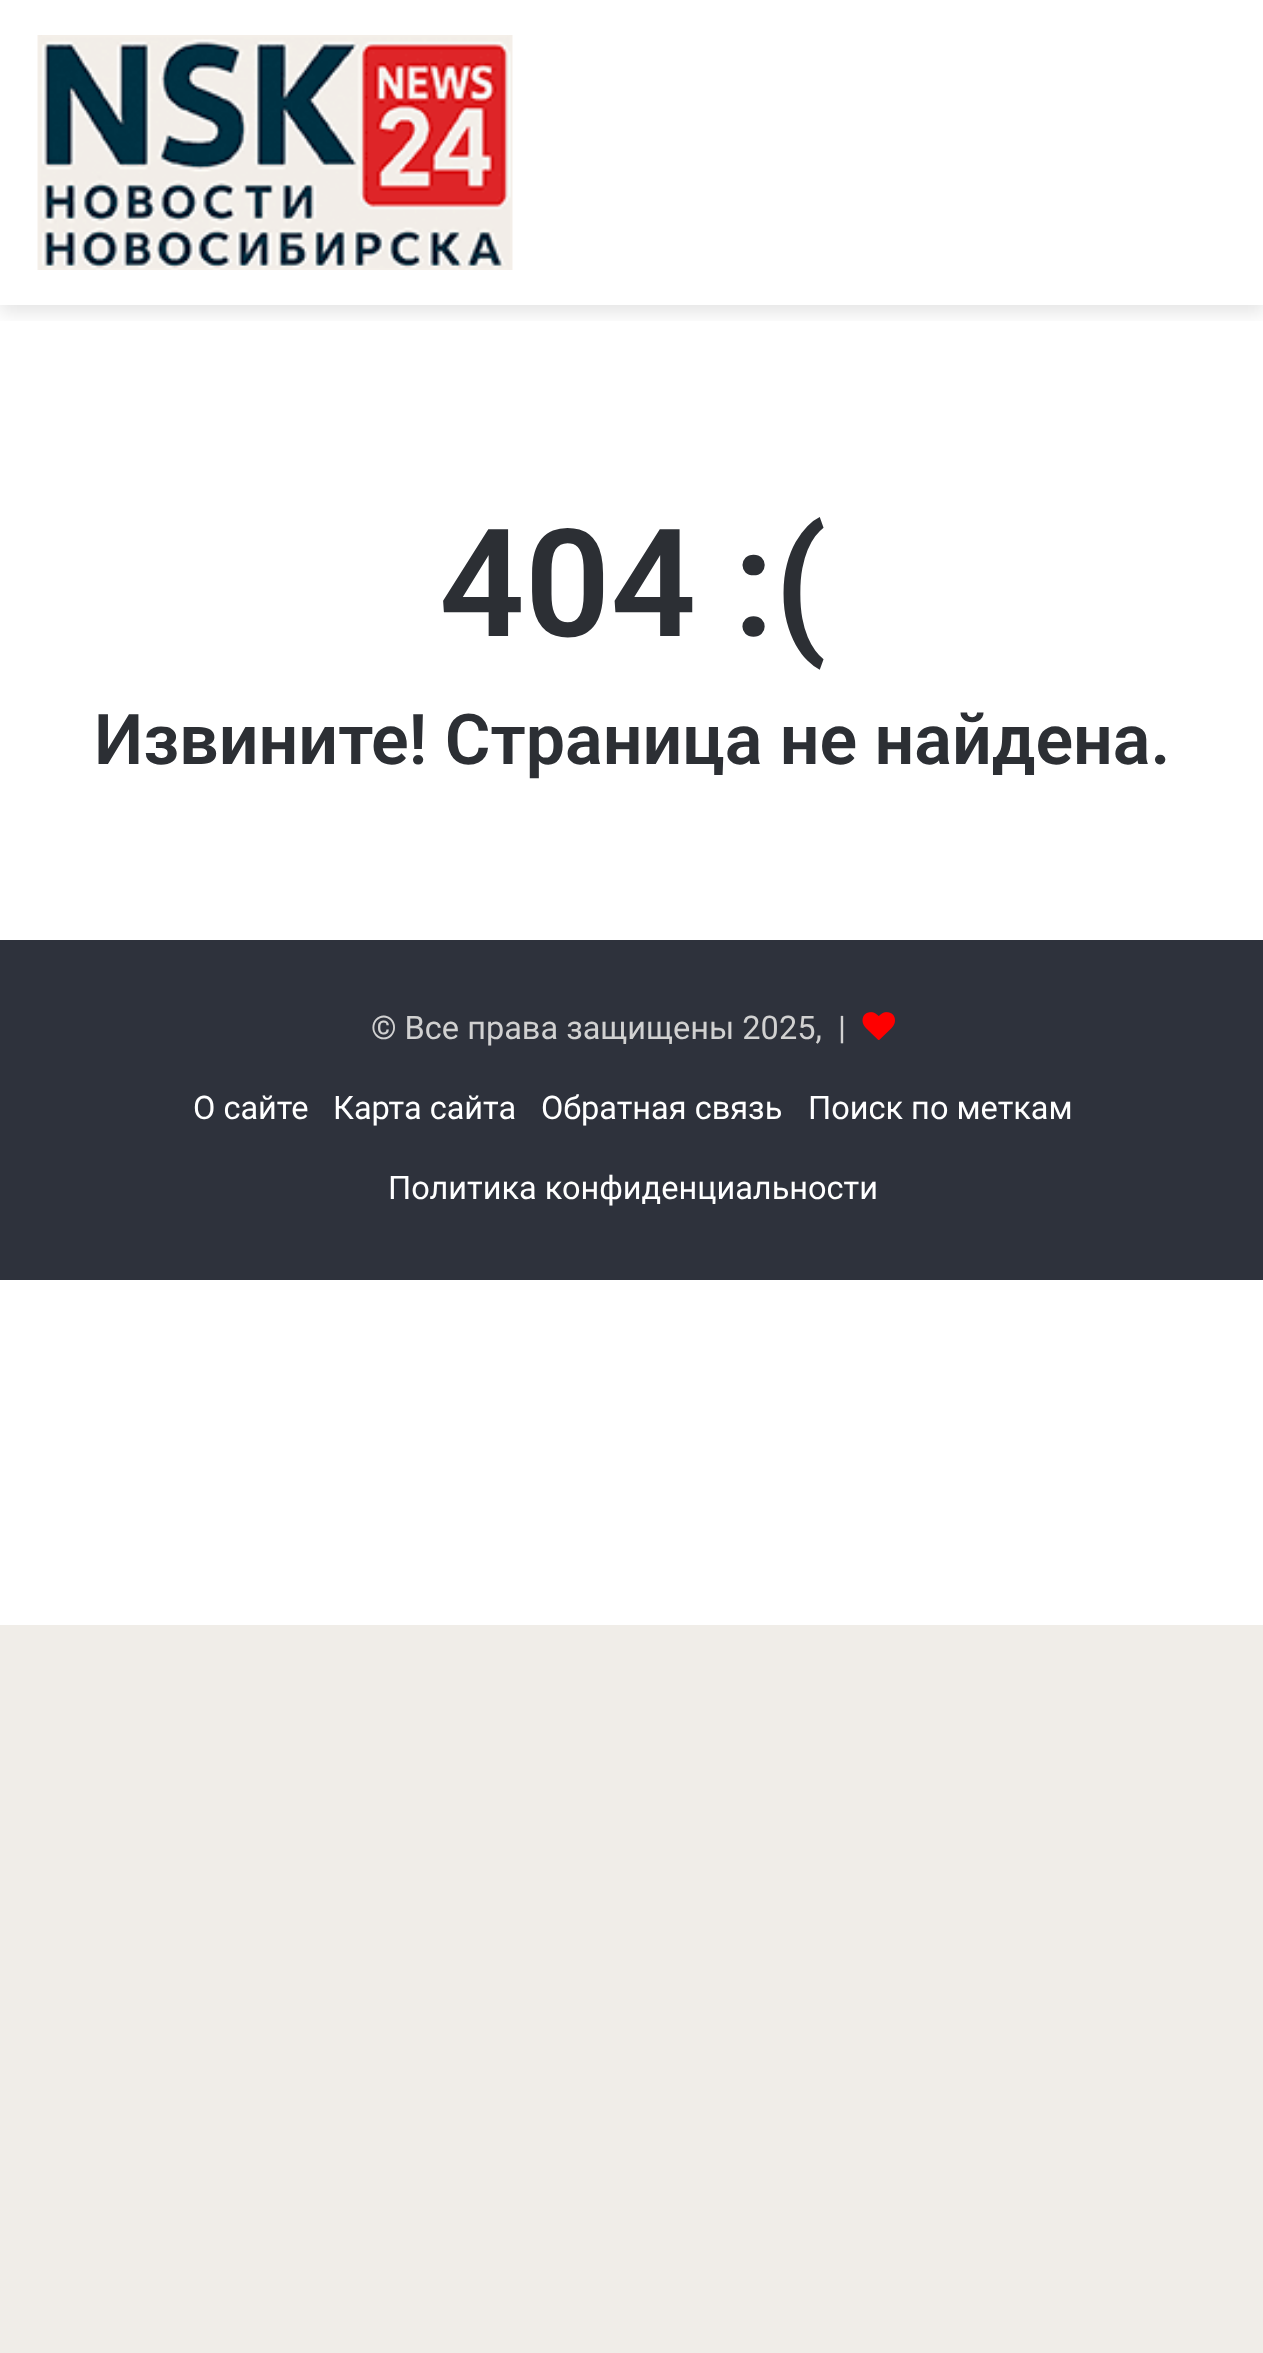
(async () => {
const canvas = document.querySelector("canvas")
canvas.width = 1263
canvas.height = 2353
const c = canvas.getContext("2d")
c.miterLimit = 4
c.fontKerning = "normal"
function T(s,x,y){c.fillText(s,x,y)}
function R(x,y,w,h){c.fillRect(x,y,w,h)}
async function I(src,x,y,w,h){const img=new Image();img.src=src;await img.decode();c.drawImage(img,x,y,w,h)}
c.fillStyle="#f0ede8"
R(0,0,1263,2353)
c.fillStyle="#fff"
R(0,0,1263,1625)
c.save()
c.beginPath()
c.rect(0,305,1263,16)
c.clip()
c.fillStyle="#0000001a"
c.filter="blur(9px)"
c.beginPath()
c.rect(0,8,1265,305)
c.fill()
c.filter="none"
c.restore()
await I("1.png",37,35,476,235)
c.font="600 150px Roboto"
c.fillStyle="#2c2f34"
T("404 :(",439,636)
c.font="600 70px Roboto"
T("Извините! Страница не найдена.",94,764)
c.fillStyle="#2e323c"
R(0,940,1263,340)
c.font="32.5px Roboto"
c.fillStyle="#d1d1d1"
T("© Все права защищены 2025,",371,1039)
T("|",838,1039)
await I("2.png",862,1012,33,28)
c.fillStyle="#fff"
T("О сайте",193,1119)
T("Карта сайта",333,1119)
T("Обратная связь",541,1119)
T("Поиск по меткам",808,1119)
T("Политика конфиденциальности",388,1199)
})()
